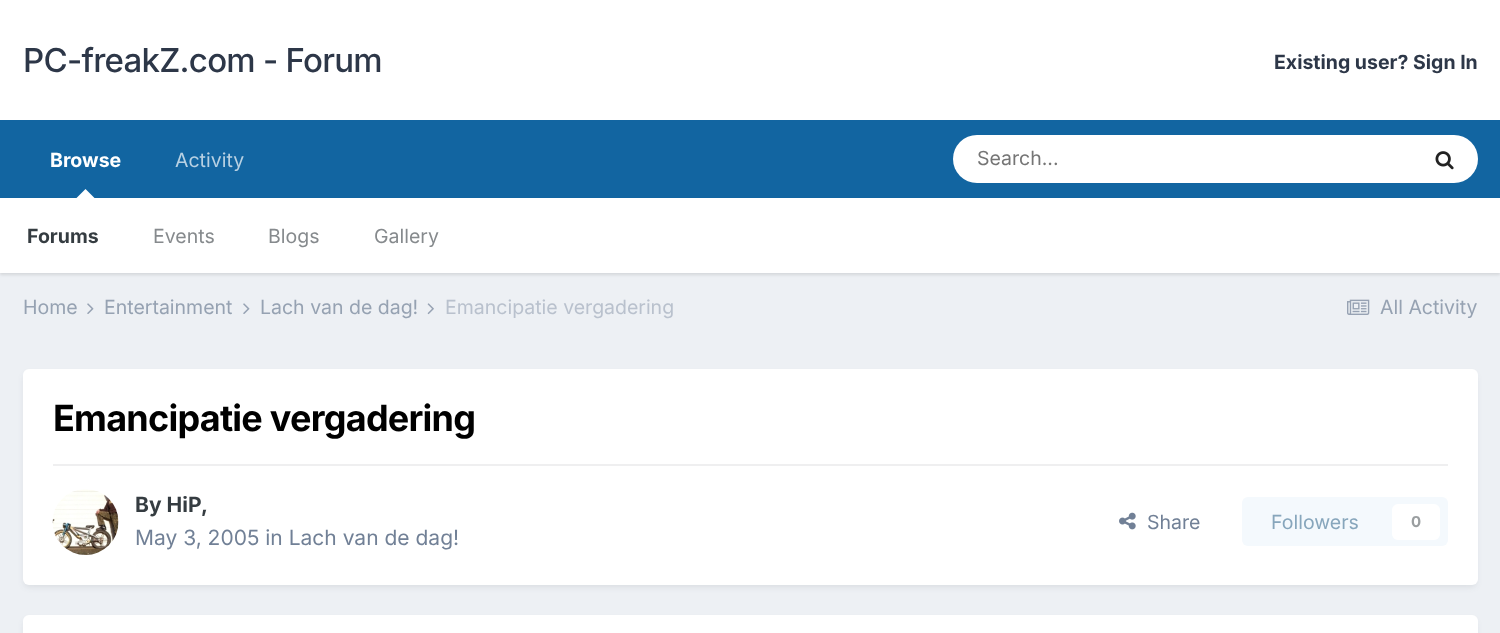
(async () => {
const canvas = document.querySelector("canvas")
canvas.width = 1500
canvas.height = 633
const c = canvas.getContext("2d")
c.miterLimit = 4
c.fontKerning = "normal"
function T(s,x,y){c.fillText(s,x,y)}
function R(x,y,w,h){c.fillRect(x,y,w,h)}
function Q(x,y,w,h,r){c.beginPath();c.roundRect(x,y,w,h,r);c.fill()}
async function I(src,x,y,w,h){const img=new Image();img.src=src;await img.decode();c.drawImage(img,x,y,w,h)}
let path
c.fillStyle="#edf0f4"
R(0,0,1500,633)
c.fillStyle="#fff"
R(0,0,1500,120)
c.letterSpacing="-0.75px"
c.font="500 33px Inter"
c.fillStyle="#2d3748"
T("PC-freakZ.com - Forum",23,72)
c.letterSpacing="0px"
c.font="bold 19.5px Inter"
T("Existing user? Sign In",1274,69)
c.fillStyle="#1265a1"
R(0,120,1500,78)
c.fillStyle="#fff"
T("Browse",50,167)
c.fillStyle="#0000001a"
c.filter="blur(1.5px)"
c.beginPath()
c.rect(0,200,1500,75)
c.fill()
c.filter="none"
c.fillStyle="#fff"
path = new Path2D("M94.5 198h-18l9-9z")
c.fill(path)
R(0,198,1500,75)
c.fillStyle="#353c41"
T("Forums",27,243)
c.font="19.5px Inter"
c.fillStyle="#868a8d"
T("Events",153,243)
T("Blogs",268,243)
T("Gallery",374,243)
c.fillStyle="#b8d1e3"
T("Activity",175,167)
c.fillStyle="#fff"
Q(953,135,525,48,24)
c.fillStyle="#757575"
T("Search...",977,165)
await I("1.png",1435,151,19,19)
c.fillStyle="#96a2b2"
T("Home",23,314)
await I("2.png",87,303,7,11)
T("Entertainment",104,314)
await I("2.png",243,303,7,11)
T("Lach van de dag!",260,314)
await I("3.png",427,303,7,12)
c.fillStyle="#b9c1cd"
T("Emancipatie vergadering",445,314)
await I("4.png",1347,299,23,16)
c.fillStyle="#96a2b2"
T("All Activity",1380,314)
c.fillStyle="#2d37481a"
c.filter="blur(3px)"
c.beginPath()
c.roundRect(24,374,1452,213,5)
c.fill()
c.filter="none"
c.fillStyle="#fff"
Q(23,369,1455,216,6)
c.letterSpacing="-0.75px"
c.font="bold 36px Inter"
c.fillStyle="#000"
T("Emancipatie vergadering",53,431)
c.fillStyle="#efeff0"
R(53,464,1395,2)
await I("5.png",52,489,67,66)
c.letterSpacing="0px"
c.font="bold 21px Inter"
c.fillStyle="#353c41"
T("By HiP",135,512)
T(",",201,512)
c.font="21px Inter"
c.fillStyle="#718096"
T("May 3, 2005 in Lach van de dag!",135,545)
await I("6.png",1119,512,17,18)
c.font="19.5px Inter"
T("Share",1147,529)
c.fillStyle="#f4f9fd"
Q(1242,497,206,49,6)
c.fillStyle="#87a6bc"
T("Followers",1271,529)
c.fillStyle="#fff"
Q(1392,504,48,36,6)
c.font="bold 15px Inter"
c.fillStyle="#9a9ea0"
T("0",1411,527)
c.fillStyle="#2d37481a"
c.filter="blur(3px)"
c.beginPath()
c.roundRect(24,620,1452,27,5)
c.fill()
c.filter="none"
c.fillStyle="#fff"
Q(23,615,1455,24,6)
})()
